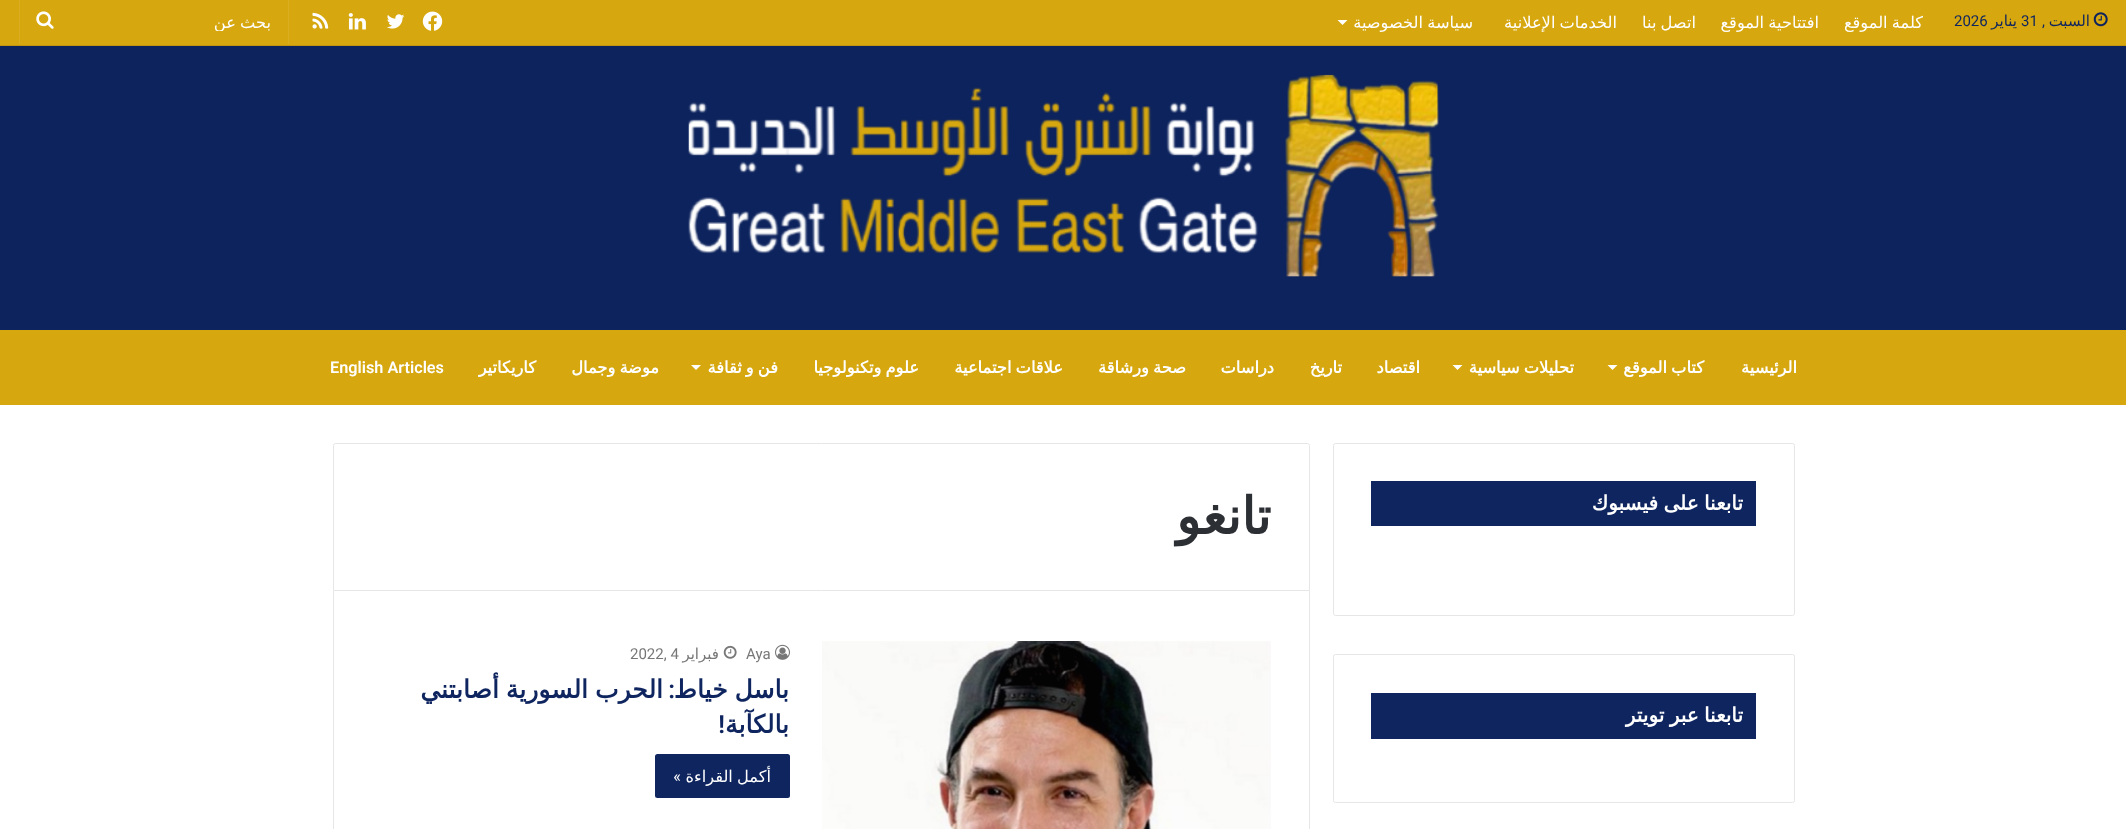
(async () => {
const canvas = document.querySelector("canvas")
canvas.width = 2126
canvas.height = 829
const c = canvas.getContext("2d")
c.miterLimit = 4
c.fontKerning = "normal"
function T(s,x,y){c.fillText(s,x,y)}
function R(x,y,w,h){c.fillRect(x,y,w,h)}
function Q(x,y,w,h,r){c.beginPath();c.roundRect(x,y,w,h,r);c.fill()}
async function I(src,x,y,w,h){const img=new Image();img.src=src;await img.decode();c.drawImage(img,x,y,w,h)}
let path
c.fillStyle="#fff"
R(0,0,2126,829)
c.fillStyle="#0d235d"
R(0,46,2126,284)
c.fillStyle="#d6a70f"
R(0,0,2126,45)
c.fillStyle="#c1960e"
R(0,45,2126,1)
await I("1.png",2093,12,15,15)
c.direction="rtl"
c.font="15px DejaVu Sans"
c.fillStyle="#0f255f"
T("السبت",2090,26)
c.font="15px Roboto"
T(",",2045,26)
c.direction="ltr"
T("31",2021,26)
c.direction="rtl"
c.font="15px DejaVu Sans"
T("يناير",2017,26)
c.direction="ltr"
c.font="15px Roboto"
T("2026",1954,26)
c.wordSpacing="-1px"
c.direction="rtl"
c.font="16.25px DejaVu Sans"
c.fillStyle="#fff"
T("كلمة الموقع",1923,28)
T("افتتاحية الموقع",1819,28)
T("اتصل بنا",1696,28)
T("الخدمات الإعلانية",1617,28)
T("سياسة الخصوصية",1473,28)
path = new Path2D("M1337.5 20h10l-5 5z")
c.fill(path)
await I("2.png",422,11,21,20)
await I("3.png",387,14,18,15)
await I("4.png",348,13,18,17)
await I("5.png",312,12,17,17)
c.fillStyle="#d9ae22"
R(288,0,1,44)
R(19,0,1,44)
c.save()
c.beginPath()
c.rect(64,13,207,18)
c.clip()
c.fillStyle="#fff"
T("بحث عن",271,28)
c.restore()
await I("6.png",36,11,18,18)
await I("7.png",688,74,751,203)
c.fillStyle="#d6a70f"
R(0,330,2126,75)
c.wordSpacing="0px"
c.font="bold 16.25px DejaVu Sans"
c.fillStyle="#fff"
T("الرئيسية",1797,373)
c.wordSpacing="-1px"
T("كتاب الموقع",1704,373)
path = new Path2D("M1607.5 365h10l-5 5z")
c.fill(path)
T("تحليلات سياسية",1574,373)
path = new Path2D("M1452.5 365h10l-5 5z")
c.fill(path)
c.wordSpacing="0px"
T("اقتصاد",1420,373)
T("تاريخ",1342,373)
T("دراسات",1274,373)
c.wordSpacing="-1px"
T("صحة ورشاقة",1186,373)
T("علاقات اجتماعية",1063,373)
T("علوم وتكنولوجيا",919,373)
T("فن و ثقافة",778,373)
path = new Path2D("M691 365h10l-5 5z")
c.fill(path)
T("موضة وجمال",659,373)
c.wordSpacing="0px"
T("كاريكاتير",536,373)
c.direction="ltr"
c.font="600 16.25px Roboto"
T("English Articles",330,373)
c.beginPath()
c.roundRect(1333.5,443.5,461,172,2)
c.strokeStyle="#e6e6e6"
c.stroke()
c.fillStyle="#0f255f"
R(1371,481,385,45)
c.wordSpacing="-1px"
c.direction="rtl"
c.font="bold 20px DejaVu Sans"
c.fillStyle="#fff"
T("تابعنا على فيسبوك",1743,510)
c.beginPath()
c.roundRect(1333.5,654.5,461,148,2)
c.stroke()
c.fillStyle="#0f255f"
R(1371,693,385,46)
c.fillStyle="#fff"
T("تابعنا عبر تويتر",1743,722)
c.beginPath()
c.roundRect(333.5,443.5,976,147,[2,2,0,0])
c.stroke()
c.wordSpacing="0px"
c.font="bold 51px DejaVu Sans"
c.fillStyle="#2c2f34"
T("تانغو",1271,534)
c.fillStyle="#e6e6e6"
R(1309,591,1,238)
R(333,591,1,238)
await I("8.png",822,641,449,188)
await I("9.png",775,644,15,16)
c.direction="ltr"
c.font="15px Roboto"
c.fillStyle="#777"
T("Aya",746,659)
await I("10.png",723,645,14,14)
c.direction="rtl"
c.font="15px DejaVu Sans"
T("فبراير",719,659)
c.direction="ltr"
c.font="15px Roboto"
T("2022, 4",630,659)
c.wordSpacing="-1px"
c.direction="rtl"
c.font="bold 25px DejaVu Sans"
c.fillStyle="#0f255f"
T("باسل خياط",789,698)
c.wordSpacing="0px"
c.font="600 25px Roboto"
T(":",675,698)
c.wordSpacing="-1px"
c.font="bold 25px DejaVu Sans"
T("الحرب السورية أصابتني",663,698)
c.wordSpacing="0px"
T("بالكآبة",789,733)
c.font="600 25px Roboto"
T("!",725,733)
Q(655,754,135,44,2.5)
c.wordSpacing="-1px"
c.font="16.25px DejaVu Sans"
c.fillStyle="#fff"
T("أكمل القراءة",771,782)
c.wordSpacing="0px"
c.font="16.25px Roboto"
T("»",681,782)
})()
